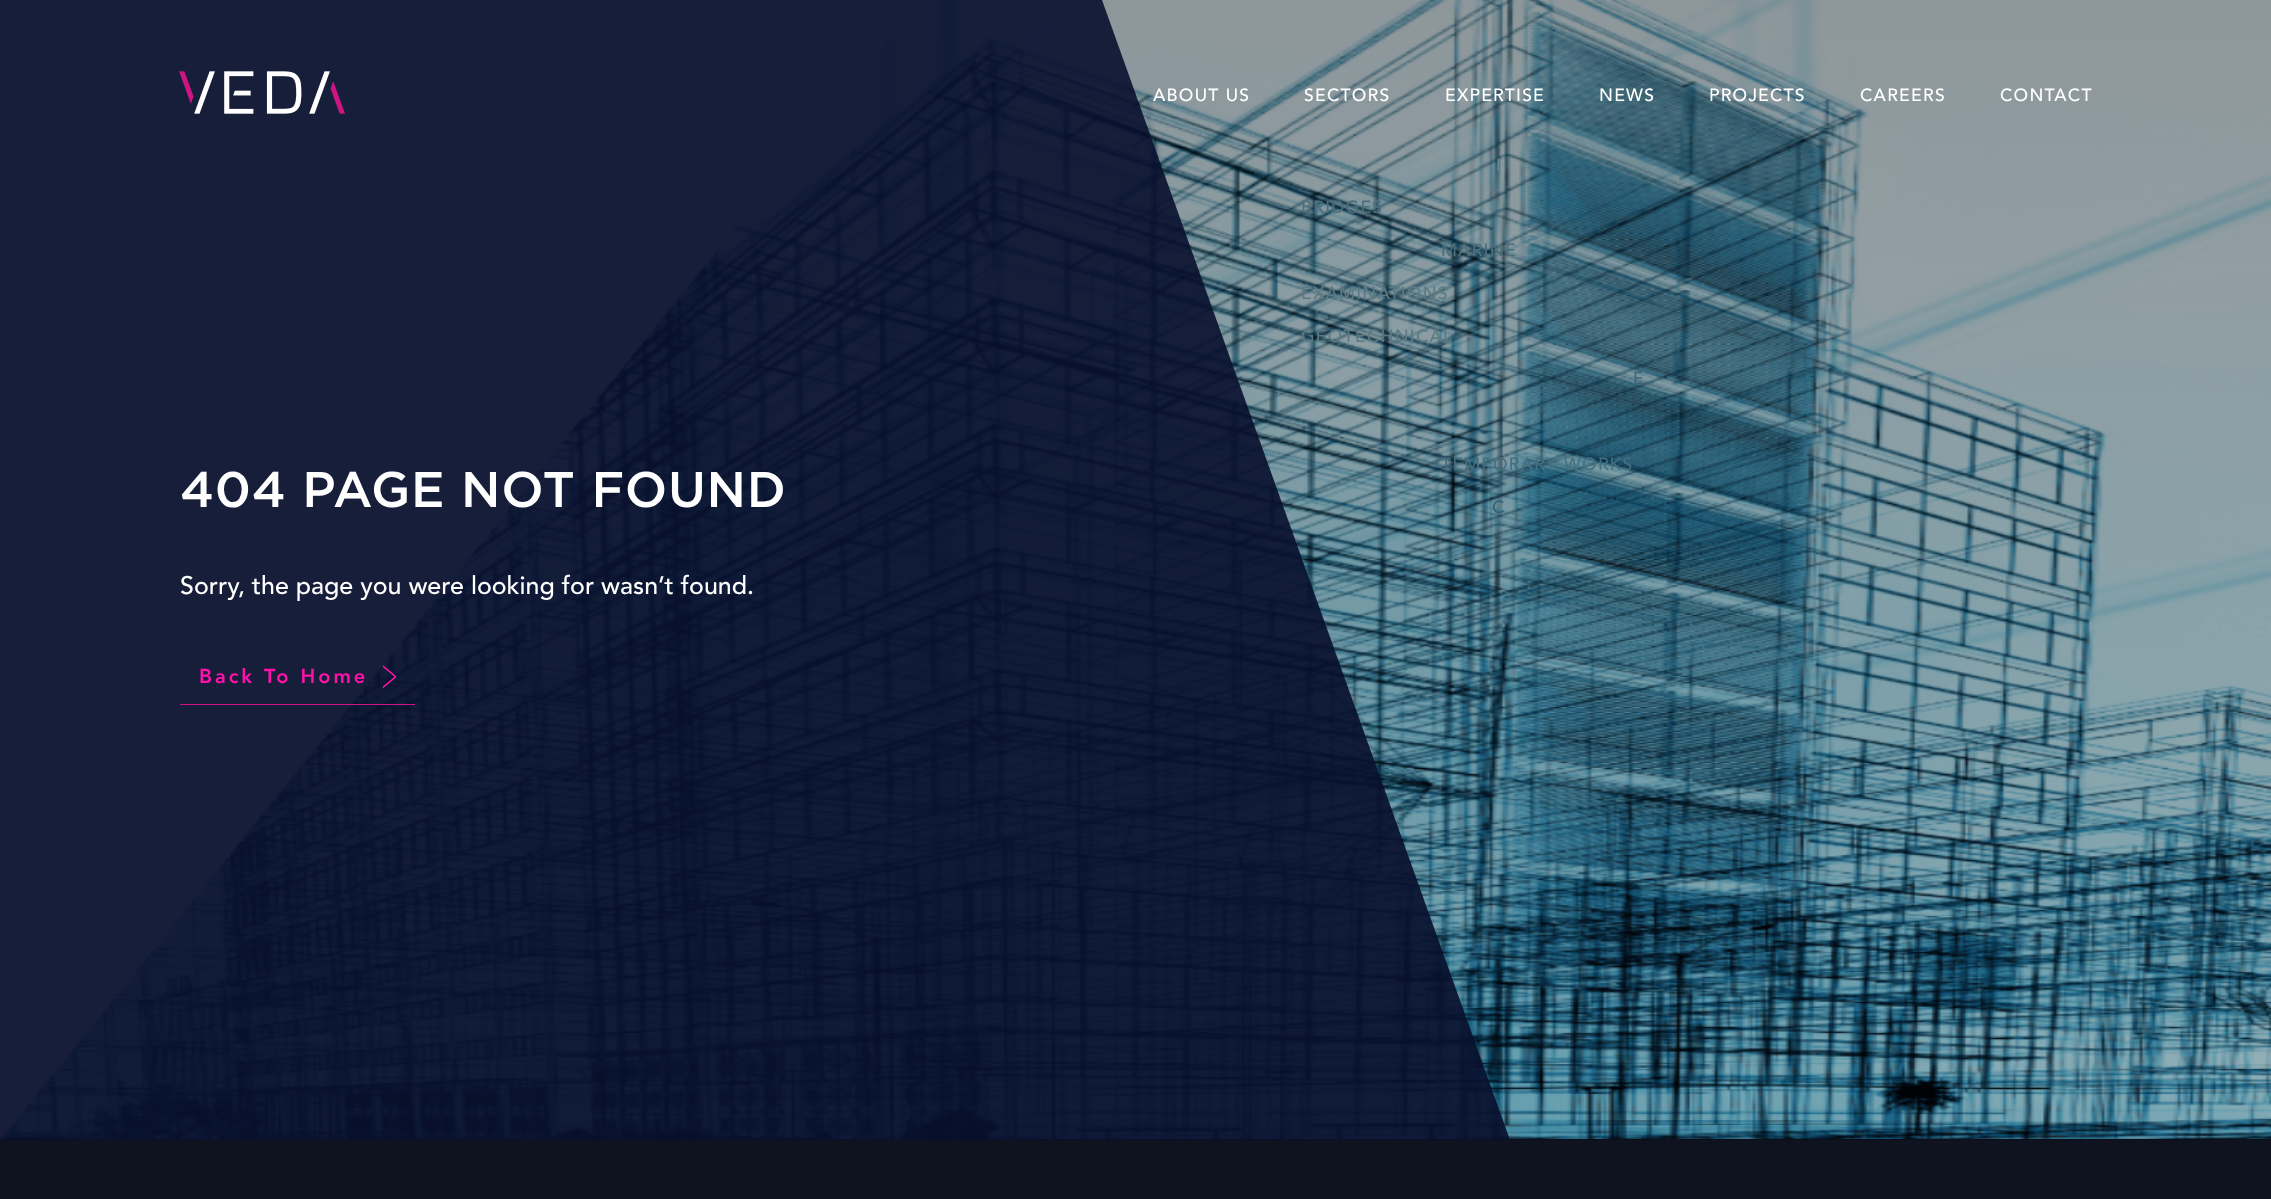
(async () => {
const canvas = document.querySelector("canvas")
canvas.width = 2271
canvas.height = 1199
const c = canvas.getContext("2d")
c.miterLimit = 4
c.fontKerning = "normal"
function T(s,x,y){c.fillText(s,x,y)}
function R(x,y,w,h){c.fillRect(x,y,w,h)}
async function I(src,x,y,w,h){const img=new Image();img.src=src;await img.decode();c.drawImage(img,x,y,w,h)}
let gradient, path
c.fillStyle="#bfbfbf"
R(0,0,2271,1199)
await I("2.png",0,0,2271,1139)
c.fillStyle="#0b0e17"
R(0,1139,2271,1)
c.fillStyle="#09102eeb"
path = new Path2D("M0 0v1140h1510l-408-1140z")
c.fill(path)
await I("1.png",179,71,166,43)
gradient = c.createLinearGradient(1136,0,1136,1140)
gradient.addColorStop(0,"#14253040")
gradient.addColorStop(1,"#14253000")
c.fillStyle = gradient
path = new Path2D("M1101 0l409 1140h761v-1140z")
c.fill(path)
c.letterSpacing="1.25px"
c.font="500 17.5px Avenir"
c.fillStyle="#fff"
T("ABOUT US",1153,101)
T("SECTORS",1304,101)
c.fillStyle="#4e6e7b"
T("BRIDGES",1301,213)
c.fillStyle="#5c7984"
T("EXAMINATIONS",1301,299)
T("GEOTECHNICAL",1301,342)
c.fillStyle="#fff"
T("EXPERTISE",1445,101)
c.fillStyle="#6b848d"
T("I",1496,171)
c.fillStyle="#4e6e7b"
T("MARINE",1441,256)
c.fillStyle="#406777"
T("E",1633,384)
c.fillStyle="#467081"
T("TEMPORARY WORKS",1441,470)
c.fillStyle="#316278"
T("C",1492,513)
c.fillStyle="#fff"
T("NEWS",1599,101)
T("PROJECTS",1709,101)
T("CAREERS",1860,101)
T("CONTACT",2000,101)
c.letterSpacing="0.75px"
c.font="500 50px Gotham"
T("404 PAGE NOT FOUND",180,507)
c.letterSpacing="0px"
c.font="500 25px Avenir"
T("Sorry, the page you were looking for wasn’t found.",180,594)
c.fillStyle="#ce1581"
R(180,704,235,1)
c.letterSpacing="3px"
c.font="900 20px Avenir"
c.fillStyle="#f1a"
T("Back To Home",199,683)
await I("3.png",383,665,13,23)
c.fillStyle="#0f121f"
R(0,1140,2271,59)
})()
